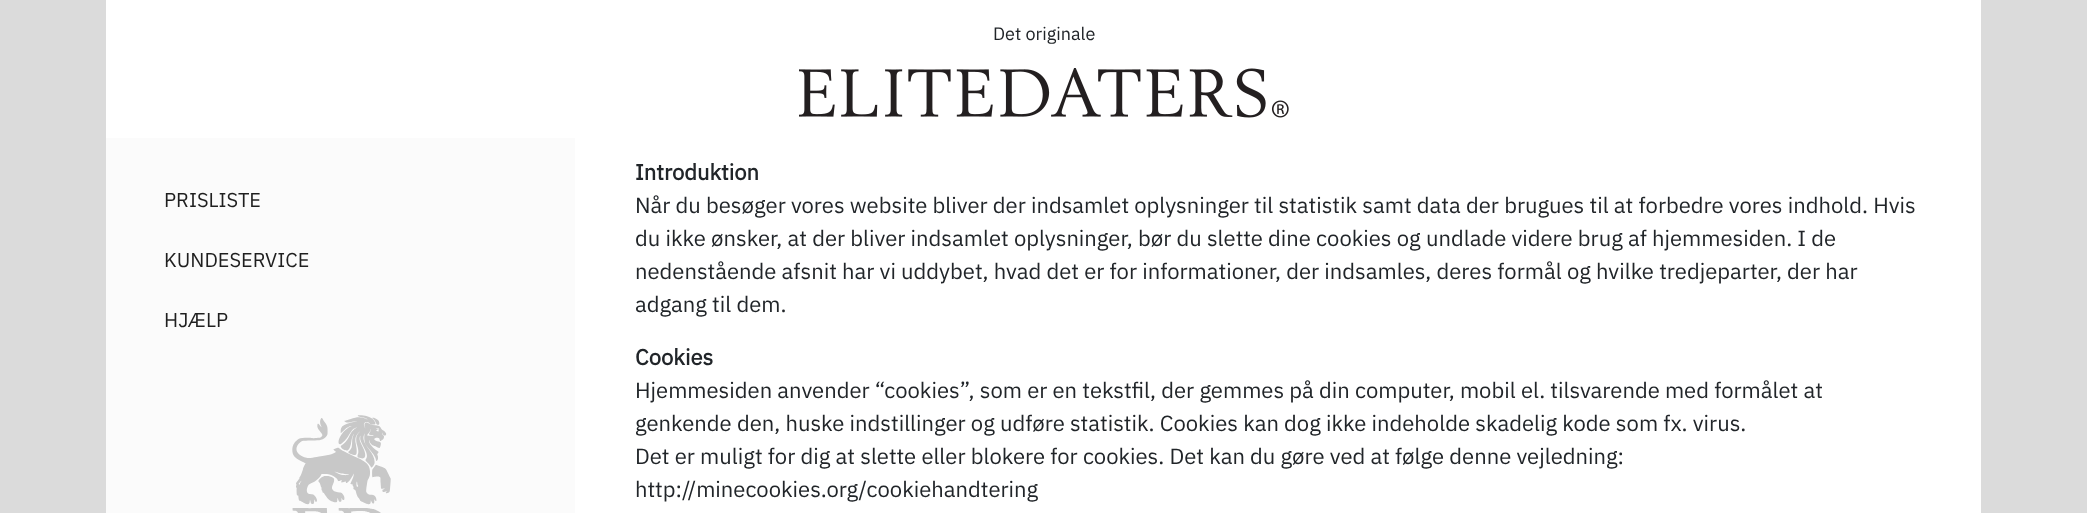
(async () => {
const canvas = document.querySelector("canvas")
canvas.width = 2087
canvas.height = 513
const c = canvas.getContext("2d")
c.miterLimit = 4
c.fontKerning = "normal"
function T(s,x,y){c.fillText(s,x,y)}
function R(x,y,w,h){c.fillRect(x,y,w,h)}
async function I(src,x,y,w,h){const img=new Image();img.src=src;await img.decode();c.drawImage(img,x,y,w,h)}
c.fillStyle="#dbdbdb"
R(0,0,2087,513)
c.fillStyle="#fff"
R(106,0,1875,138)
c.font="18px IBM Plex Sans"
c.fillStyle="#212529"
T("Det originale",993,40)
await I("1.png",799,68,490,50)
c.fillStyle="#fbfbfb"
R(106,138,469,375)
c.font="20px IBM Plex Sans"
c.fillStyle="#1f1f1f"
T("PRISLISTE",164,207)
T("KUNDESERVICE",164,267)
T("HJÆLP",164,327)
await I("2.png",292,415,99,98)
c.fillStyle="#fff"
R(575,138,1406,375)
c.font="bold 22px IBM Plex Sans"
c.fillStyle="#212529"
T("Introduktion",635,180)
c.font="22px IBM Plex Sans"
T("Når du besøger vores website bliver der indsamlet oplysninger til statistik samt data der brugues til at forbedre vores indhold. Hvis",635,213)
T("du ikke ønsker, at der bliver indsamlet oplysninger, bør du slette dine cookies og undlade videre brug af hjemmesiden. I de",635,246)
T("nedenstående afsnit har vi uddybet, hvad det er for informationer, der indsamles, deres formål og hvilke tredjeparter, der har",635,279)
T("adgang til dem.",635,312)
c.font="bold 22px IBM Plex Sans"
T("Cookies",635,365)
c.font="22px IBM Plex Sans"
T("Hjemmesiden anvender “cookies”, som er en tekstfil, der gemmes på din computer, mobil el. tilsvarende med formålet at",635,398)
T("genkende den, huske indstillinger og udføre statistik. Cookies kan dog ikke indeholde skadelig kode som fx. virus.",635,431)
T("Det er muligt for dig at slette eller blokere for cookies. Det kan du gøre ved at følge denne vejledning:",635,464)
T("http://minecookies.org/cookiehandtering",635,497)
})()
